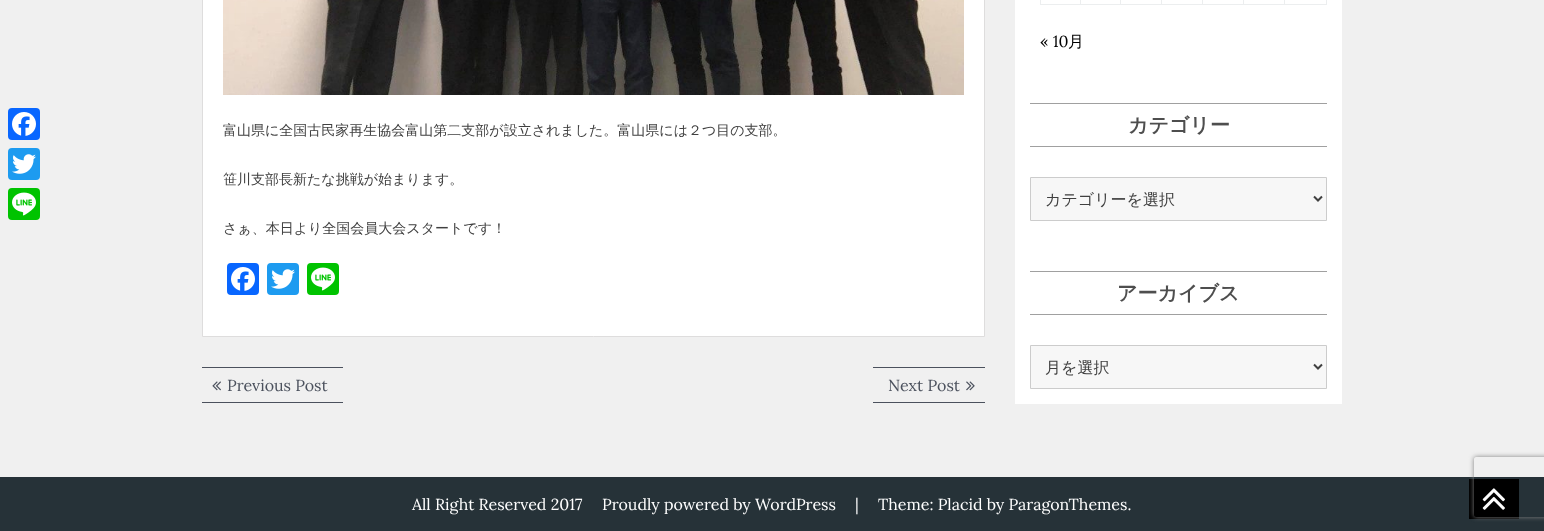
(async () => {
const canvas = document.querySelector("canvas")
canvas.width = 1544
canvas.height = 531
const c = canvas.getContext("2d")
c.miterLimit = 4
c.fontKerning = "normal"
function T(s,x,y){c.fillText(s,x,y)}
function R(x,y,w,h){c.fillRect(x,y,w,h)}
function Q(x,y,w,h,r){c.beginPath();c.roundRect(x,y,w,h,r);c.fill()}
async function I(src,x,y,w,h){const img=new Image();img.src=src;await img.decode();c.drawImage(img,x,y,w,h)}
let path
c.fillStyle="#f0f0f0"
R(0,0,1544,531)
c.fillStyle="#0866ff"
Q(8,108,32,32,4)
await I("1.png",12,112,24,24)
c.fillStyle="#1d9bf0"
Q(8,148,32,32,4)
await I("2.png",12,154,24,20)
c.fillStyle="#00c300"
Q(8,188,32,32,4)
await I("3.png",12,192,24,24)
c.fillStyle="#fff"
c.beginPath()
c.rect(202.5,-.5,782,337)
c.fill()
c.strokeStyle="#dedddd"
c.stroke()
await I("4.png",223,0,741,95)
c.font="500 14px WenQuanYi Zen Hei"
c.fillStyle="#404040"
T("富山県に全国古民家再生協会富山第二支部が設立されました。富山県には２つ目の支部。",223,135)
T("笹川支部長新たな挑戦が始まります。",223,184)
T("さぁ、本日より全国会員大会スタートです！",223,233)
c.fillStyle="#0866ff"
Q(227,263,32,32,4)
await I("1.png",231,267,24,24)
c.fillStyle="#1d9bf0"
Q(267,263,32,32,4)
await I("2.png",271,269,24,20)
c.fillStyle="#00c300"
Q(307,263,32,32,4)
await I("3.png",311,267,24,24)
c.fillStyle="#4b515d"
R(202,367,141,1)
R(202,402,141,1)
await I("5.png",212,381,9,10)
c.font="16px Lora"
T("Previous Post",227,391)
R(873,367,112,1)
R(873,402,112,1)
T("Next Post",888,391)
await I("6.png",966,381,9,10)
c.fillStyle="#fff"
R(1015,0,327,404)
c.fillStyle="#eceeef"
R(1326,0,1,5)
R(1040,4,287,1)
R(1040,0,1,5)
R(1080,0,1,5)
R(1120,0,1,5)
R(1161,0,1,5)
R(1202,0,1,5)
R(1243,0,1,5)
R(1284,0,1,5)
c.fillStyle="#000"
T("« 10",1040,47)
c.font="500 16px WenQuanYi Zen Hei"
T("月",1068,47)
c.fillStyle="#a0a0a0"
R(1030,103,297,1)
R(1030,146,297,1)
c.font="bold 20px WenQuanYi Zen Hei"
c.fillStyle="#4e4e4e"
T("カテゴリー",1128,132)
c.fillStyle="#f7f7f7"
c.beginPath()
c.rect(1030.5,177.5,296,43)
c.fill()
c.strokeStyle="#ccc"
c.stroke()
path = new Path2D("M1314 196.5l4 4l4-4")
c.strokeStyle="#404040"
c.lineWidth=2
c.stroke(path)
c.font="500 16px WenQuanYi Zen Hei"
c.fillStyle="#404040"
T("カテゴリーを選択",1045,205)
c.fillStyle="#a0a0a0"
R(1030,271,297,1)
R(1030,314,297,1)
c.font="bold 20px WenQuanYi Zen Hei"
c.fillStyle="#4e4e4e"
T("アーカイブス",1117,300)
c.fillStyle="#f7f7f7"
c.beginPath()
c.rect(1030.5,345.5,296,43)
c.fill()
c.strokeStyle="#ccc"
c.lineWidth=1
c.stroke()
path = new Path2D("M1314 364.5l4 4l4-4")
c.strokeStyle="#404040"
c.lineWidth=2
c.stroke(path)
c.font="500 16px WenQuanYi Zen Hei"
c.fillStyle="#404040"
T("月を選択",1045,373)
c.fillStyle="#263238"
R(0,477,1544,54)
c.font="16px Lora"
c.fillStyle="#fff"
T("All Right Reserved 2017",412,510)
T("Proudly powered by WordPress",602,510)
T("|",855,510)
T("Theme: Placid by ParagonThemes.",878,510)
c.fillStyle="#000"
R(1469,479,50,40)
await I("7.png",1482,488,23,22)
c.save()
path = new Path2D("M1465 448h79v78h-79zm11 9h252c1 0 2 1 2 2v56c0 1-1 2-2 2h-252c-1 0-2-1-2-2v-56c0-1 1-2 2-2z")
c.clip(path,"evenodd")
c.fillStyle="#808080"
c.filter="blur(2.5px)"
c.beginPath()
c.roundRect(1474,457,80,60,2)
c.fill()
c.filter="none"
c.restore()
})()
